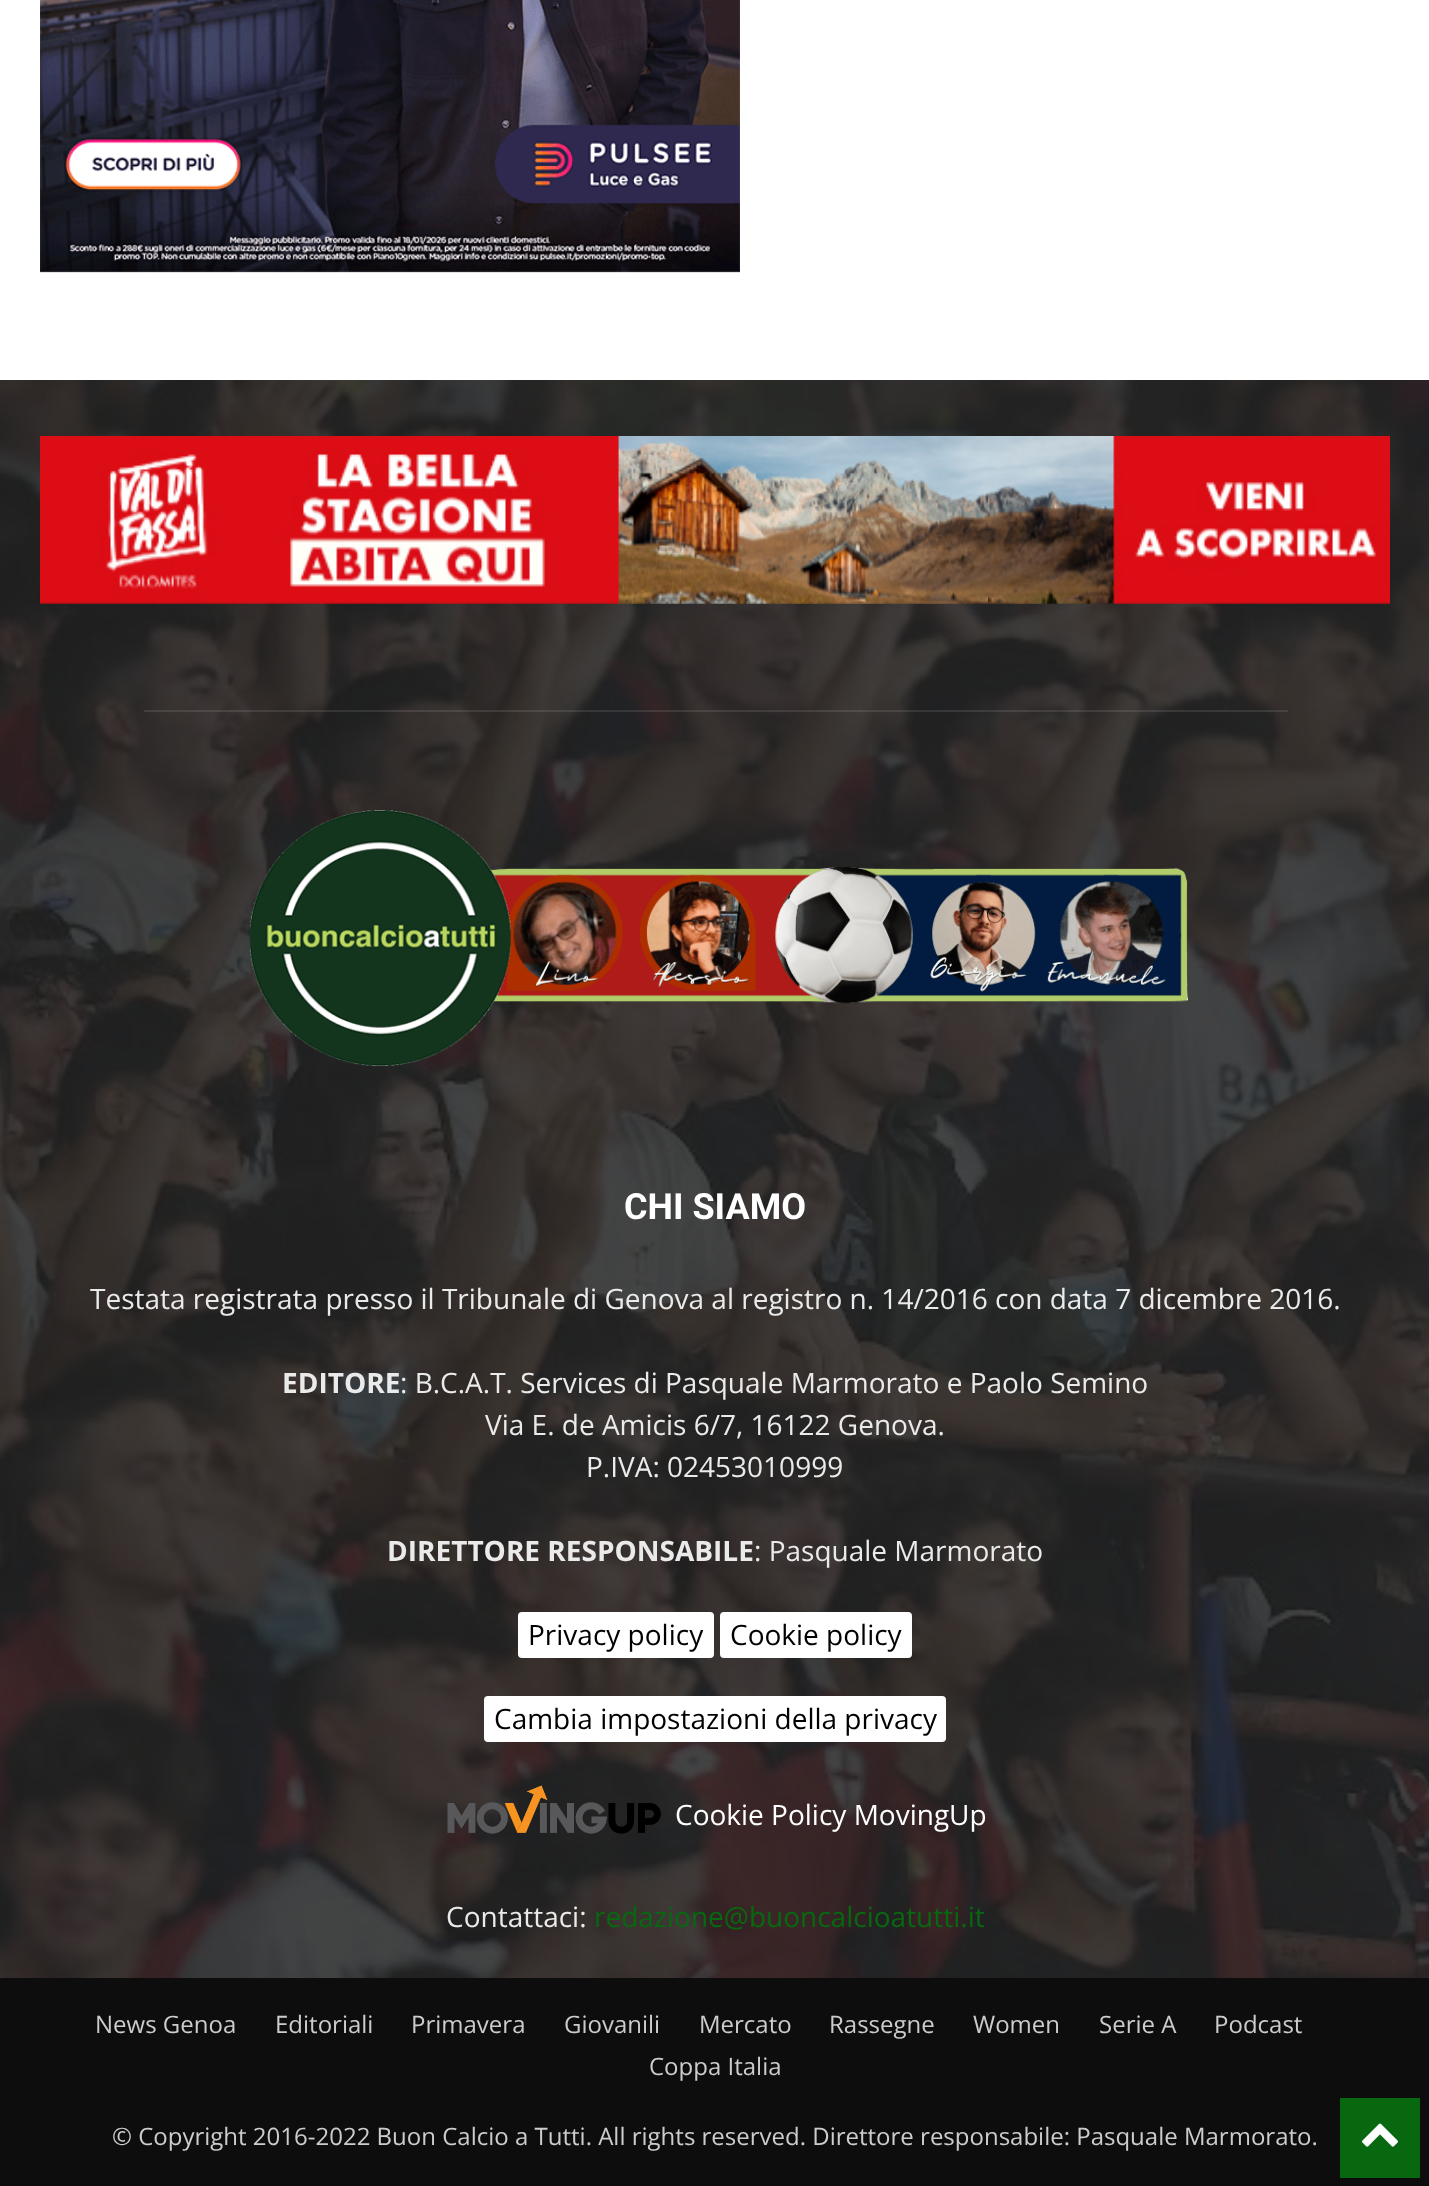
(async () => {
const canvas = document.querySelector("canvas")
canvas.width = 1429
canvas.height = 2186
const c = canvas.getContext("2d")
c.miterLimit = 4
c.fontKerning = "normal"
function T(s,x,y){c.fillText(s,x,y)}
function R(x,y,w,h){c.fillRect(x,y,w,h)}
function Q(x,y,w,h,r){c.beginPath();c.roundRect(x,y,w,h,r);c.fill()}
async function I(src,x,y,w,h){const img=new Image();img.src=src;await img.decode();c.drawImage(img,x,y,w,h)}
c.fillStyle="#fff"
R(0,0,1429,2186)
await I("1.png",0,380,1429,1598)
await I("2.png",40,0,700,273)
c.fillStyle="#222222d9"
R(0,380,1429,1598)
await I("3.png",40,436,1350,168)
c.fillStyle="#ffffff1a"
R(144,710,1144,2)
await I("4.png",249,810,939,256)
c.font="bold 36px Roboto"
c.fillStyle="#fff"
T("CHI SIAMO",624,1219)
c.font="28px Open Sans"
c.fillStyle="#eaeaea"
T("Testata registrata presso il Tribunale di Genova al registro n. 14/2016 con data 7 dicembre 2016.",90,1309)
c.font="bold 28px Open Sans"
T("EDITORE",282,1393)
c.font="28px Open Sans"
T(": B.C.A.T. Services di Pasquale Marmorato e Paolo Semino",400,1393)
T("Via E. de Amicis 6/7, 16122 Genova.",485,1435)
T("P.IVA: 02453010999",586,1477)
c.font="bold 28px Open Sans"
T("DIRETTORE RESPONSABILE",387,1561)
c.font="28px Open Sans"
T(": Pasquale Marmorato",754,1561)
c.fillStyle="#fff"
Q(518,1612,196,46,4)
c.fillStyle="#000"
T("Privacy policy",528,1645)
c.fillStyle="#fff"
Q(720,1612,192,46,4)
c.fillStyle="#000"
T("Cookie policy",730,1645)
c.fillStyle="#fff"
Q(484,1696,462,46,4)
c.fillStyle="#000"
T("Cambia impostazioni della privacy",494,1729)
await I("5.png",447,1785,214,49)
c.fillStyle="#fff"
T("Cookie Policy MovingUp",675,1825)
c.fillStyle="#eaeaea"
T("Contattaci:",446,1927)
c.fillStyle="#086810"
T("redazione@buoncalcioatutti.it",594,1927)
c.fillStyle="#0d0d0d"
R(0,1978,1429,208)
c.font="24px Open Sans"
c.fillStyle="#ccc"
T("News Genoa",95,2033)
T("Editoriali",275,2033)
T("Primavera",411,2033)
T("Giovanili",564,2033)
T("Mercato",699,2033)
T("Rassegne",829,2033)
T("Women",973,2033)
T("Serie A",1099,2033)
T("Podcast",1214,2033)
T("Coppa Italia",649,2075)
T("© Copyright 2016-2022 Buon Calcio a Tutti. All rights reserved. Direttore responsabile: Pasquale Marmorato.",112,2145)
c.fillStyle="#086810"
R(1340,2098,80,80)
await I("6.png",1362,2123,36,24)
})()
